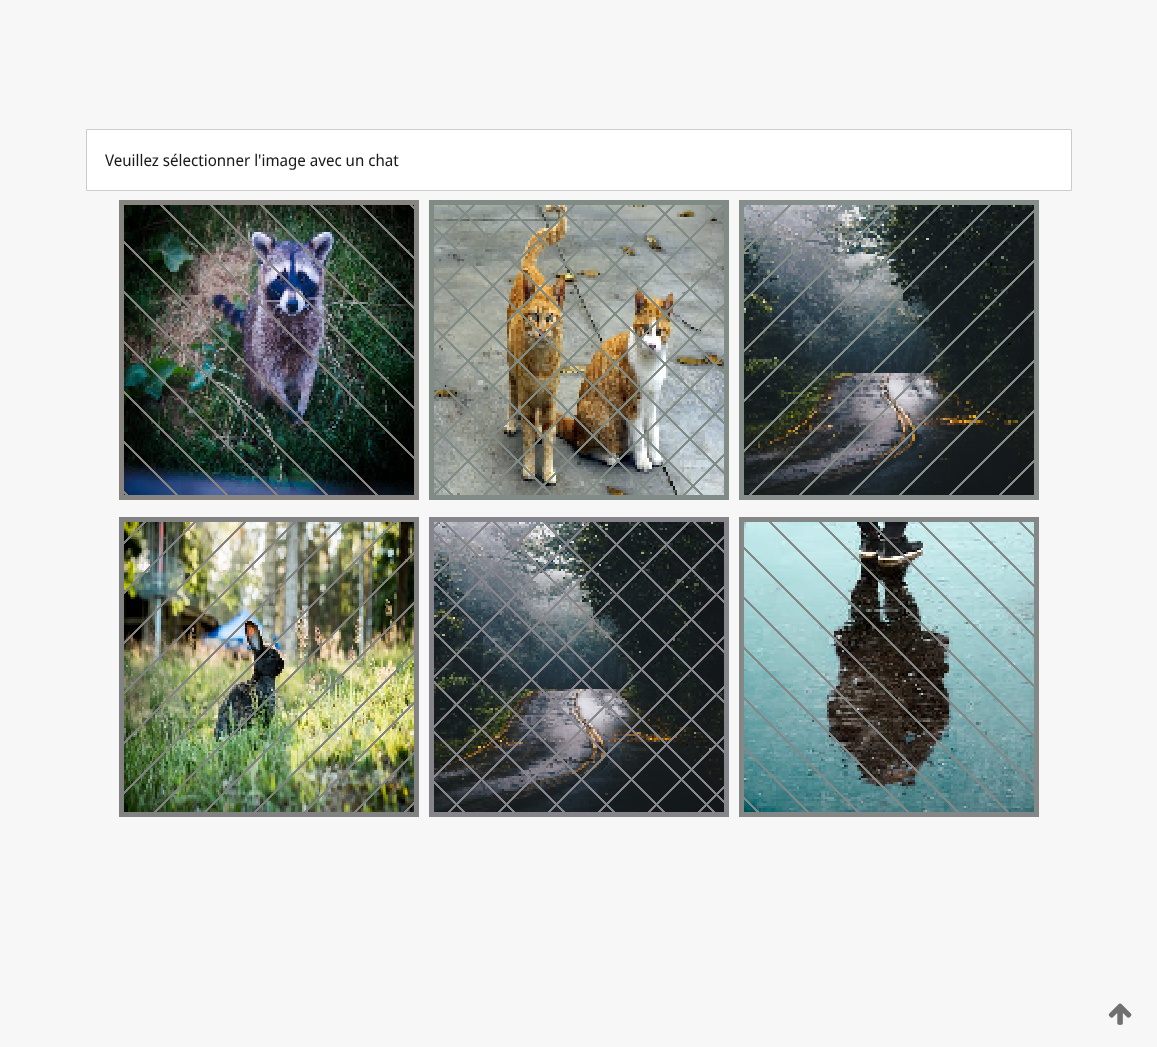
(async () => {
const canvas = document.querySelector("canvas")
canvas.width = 1157
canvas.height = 1047
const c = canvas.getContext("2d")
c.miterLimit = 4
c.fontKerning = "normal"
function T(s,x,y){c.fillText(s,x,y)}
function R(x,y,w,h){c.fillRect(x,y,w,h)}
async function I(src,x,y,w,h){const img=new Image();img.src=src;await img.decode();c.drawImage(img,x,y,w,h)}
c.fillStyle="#f7f7f7"
R(0,0,1157,1047)
c.fillStyle="#fff"
c.beginPath()
c.rect(86.5,129.5,985,61)
c.fill()
c.strokeStyle="#ccc"
c.stroke()
c.font="16px Noto Sans Display"
c.fillStyle="#1a1a1a"
T("Veuillez sélectionner l'image avec un chat",105,166)
await I("1.png",119,200,300,300)
await I("2.png",429,200,300,300)
await I("3.png",739,200,300,300)
await I("4.png",119,517,300,300)
await I("5.png",429,517,300,300)
await I("6.png",739,517,300,300)
await I("7.png",1108,1003,24,22)
})()
